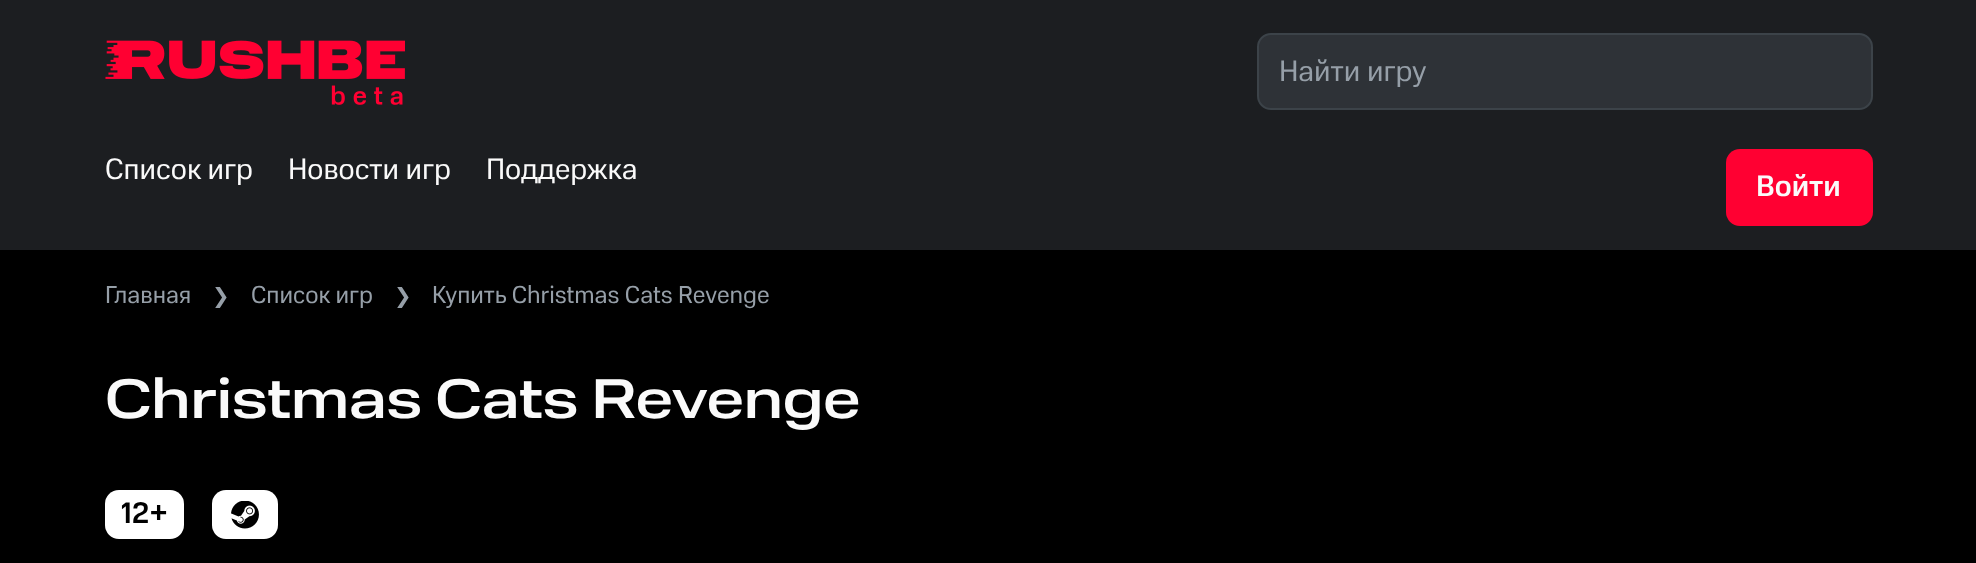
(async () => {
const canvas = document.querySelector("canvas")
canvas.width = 1976
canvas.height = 563
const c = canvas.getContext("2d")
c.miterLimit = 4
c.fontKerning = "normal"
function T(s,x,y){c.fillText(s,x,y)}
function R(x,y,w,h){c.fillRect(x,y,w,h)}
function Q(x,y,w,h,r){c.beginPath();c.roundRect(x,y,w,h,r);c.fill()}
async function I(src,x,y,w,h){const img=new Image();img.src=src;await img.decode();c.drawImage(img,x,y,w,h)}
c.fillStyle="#000"
R(0,0,1976,563)
c.fillStyle="#1c1e21"
R(0,0,1976,250)
await I("1.png",105,40,300,65)
c.fillStyle="#2e3237"
c.beginPath()
c.roundRect(1258,34,614,75,13)
c.fill()
c.strokeStyle="#3c4349"
c.lineWidth=2
c.stroke()
c.font="29.75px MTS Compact"
c.fillStyle="#969fa8"
T("Найти игру",1279,81)
c.fillStyle="#fafafa"
T("Список игр",105,179)
T("Новости игр",288,179)
T("Поддержка",486,179)
c.fillStyle="#ff0032"
Q(1726,149,147,77,14)
c.font="500 29.75px MTS Compact"
c.fillStyle="#fafafa"
T("Войти",1756,196)
c.font="24.5px MTS Compact"
c.fillStyle="#969fa8"
T("Главная",105,303)
c.font="21px DejaVu Sans"
T("❯",212,303)
c.font="24.5px MTS Compact"
T("Список игр",251,303)
c.font="21px DejaVu Sans"
T("❯",394,303)
c.font="24.5px MTS Compact"
T("Купить Christmas Cats Revenge",432,303)
c.font="500 56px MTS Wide"
c.fillStyle="#fafafa"
T("Christmas Cats Revenge",105,418)
c.fillStyle="#fff"
Q(105,490,79,49,14)
c.font="500 29.75px MTS Compact"
c.fillStyle="#000"
T("12+",121,523)
c.fillStyle="#fff"
Q(212,490,66,49,14)
await I("2.png",231,501,28,28)
})()
